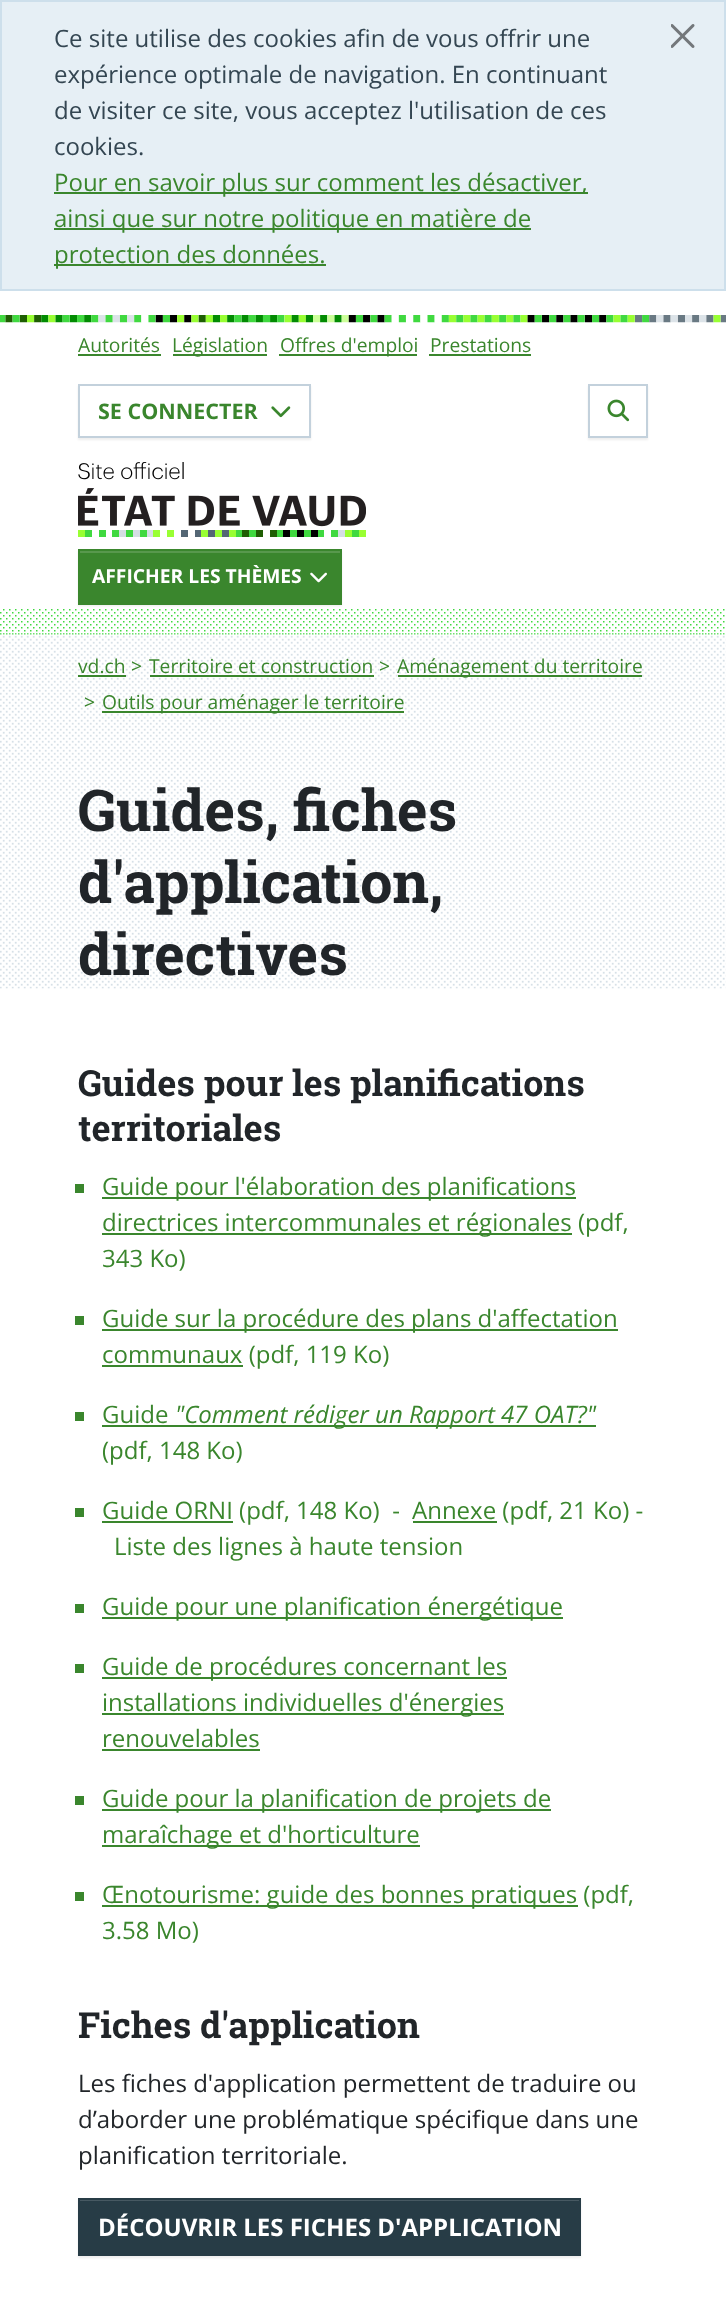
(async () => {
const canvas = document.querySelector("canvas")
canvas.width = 726
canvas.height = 2299
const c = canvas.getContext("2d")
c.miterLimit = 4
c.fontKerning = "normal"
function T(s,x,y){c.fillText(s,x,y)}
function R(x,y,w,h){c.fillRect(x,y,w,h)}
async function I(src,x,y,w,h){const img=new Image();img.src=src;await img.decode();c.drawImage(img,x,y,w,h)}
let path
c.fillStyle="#fff"
R(0,0,726,2299)
c.fillStyle="#e6eff5"
c.beginPath()
c.rect(1,1,724,289)
c.fill()
c.strokeStyle="#cddfeb"
c.lineWidth=2
c.stroke()
c.font="24px Open Sans"
c.fillStyle="#344652"
T("Ce site utilise des cookies afin de vous offrir une",54,47)
T("expérience optimale de navigation. En continuant",54,83)
T("de visiter ce site, vous acceptez l'utilisation de ces",54,119)
T("cookies.",54,155)
c.fillStyle="#3a862d"
R(54,192,534,2)
T("Pour en savoir plus sur comment les désactiver,",54,191)
R(54,228,477,2)
T("ainsi que sur notre politique en matière de",54,227)
R(54,264,272,2)
T("protection des données.",54,263)
await I("1.png",671,24,24,24)
await I("2.png",0,315,726,8)
c.font="19.25px Open Sans"
T("Autorités",78,352)
R(78,354,83,2)
R(173,354,94,2)
T("Législation",172,352)
R(279,354,138,2)
T("Offres d'emploi",280,352)
T("Prestations",430,352)
R(429,354,102,2)
c.save()
path = new Path2D("M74 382h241v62h-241zm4 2h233v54h-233z")
c.clip(path,"evenodd")
c.fillStyle="#00000012"
c.filter="blur(1px)"
c.beginPath()
c.rect(78,386,233,54)
c.fill()
c.filter="none"
c.restore()
c.strokeStyle="#c3d1dc"
c.strokeRect(79,385,231,52)
c.font="bold 21.5px Open Sans"
T("SE CONNECTER",98,419)
await I("3.png",271,406,20,12)
c.save()
path = new Path2D("M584 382h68v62h-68zm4 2h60v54h-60z")
c.clip(path,"evenodd")
c.fillStyle="#00000012"
c.filter="blur(1px)"
c.beginPath()
c.rect(588,386,60,54)
c.fill()
c.filter="none"
c.restore()
c.strokeRect(589,385,58,52)
await I("4.png",607,399,23,23)
await I("5.png",78,462,288,75)
path = new Path2D("M0 634h726")
c.strokeStyle="#40d940"
c.lineWidth=1.5
c.setLineDash([1.5,1.5])
c.stroke(path)
await I("7.png",0,609,725,23)
c.fillStyle="#00000012"
c.filter="blur(1px)"
c.beginPath()
c.rect(78,551,264,55)
c.fill()
c.filter="none"
c.fillStyle="#3a862d"
R(80,553,260,50)
c.fillStyle="#58984d"
R(80,551,261,2)
c.strokeStyle="#3a862d"
c.lineWidth=2
c.setLineDash([])
c.strokeRect(79,550,262,54)
c.font="bold 19.25px Open Sans"
c.fillStyle="#fff"
T("AFFICHER LES THÈMES",92,583)
await I("6.png",310,572,17,11)
await I("8.png",0,634,726,139)
c.font="19.25px Open Sans"
c.fillStyle="#3a862d"
T("vd.ch",78,673)
R(78,675,48,2)
T(">",131,673)
T("Territoire et construction",149,673)
R(150,675,224,2)
T(">",379,673)
R(398,675,244,2)
T("Aménagement du territoire",397,673)
T(">",84,709)
R(102,711,302,2)
T("Outils pour aménager le territoire",102,709)
await I("9.png",0,772,726,217)
c.font="bold 57.5px Roboto Slab"
c.fillStyle="#212529"
T("Guides, fiches",78,831)
T("d'application,",78,903)
T("directives",78,975)
c.font="bold 36px Roboto Slab"
T("Guides pour les planifications",78,1096)
T("territoriales",78,1141)
c.fillStyle="#3a862d"
R(75,1184,9,9)
R(102,1197,474,2)
c.font="24px Open Sans"
T("Guide pour l'élaboration des planifications",102,1195)
R(102,1233,470,2)
T("directrices intercommunales et régionales (pdf,",102,1231)
T("343 Ko)",102,1267)
R(75,1316,9,9)
R(102,1329,516,2)
T("Guide sur la procédure des plans d'affectation",102,1327)
R(102,1365,141,2)
T("communaux (pdf, 119 Ko)",102,1363)
R(75,1412,9,9)
T("Guide",102,1423)
R(102,1425,494,2)
c.font="italic 24px Open Sans"
T("\"Comment rédiger un Rapport 47 OAT?\"",175,1423)
c.font="24px Open Sans"
T("(pdf, 148 Ko)",102,1459)
R(75,1508,9,9)
R(102,1521,131,2)
T("Guide ORNI (pdf, 148 Ko)  -",102,1519)
R(413,1521,84,2)
T("Annexe (pdf, 21 Ko) -",412,1519)
T("Liste des lignes à haute tension",114,1555)
R(75,1604,9,9)
R(102,1617,461,2)
T("Guide pour une planification énergétique",102,1615)
R(75,1664,9,9)
R(102,1677,405,2)
T("Guide de procédures concernant les",102,1675)
R(102,1713,402,2)
T("installations individuelles d'énergies",102,1711)
T("renouvelables",102,1747)
R(102,1749,158,2)
R(75,1796,9,9)
R(102,1809,449,2)
T("Guide pour la planification de projets de",102,1807)
R(102,1845,318,2)
T("maraîchage et d'horticulture",102,1843)
R(75,1892,9,9)
R(102,1905,476,2)
T("Œnotourisme: guide des bonnes pratiques (pdf,",102,1903)
T("3.58 Mo)",102,1939)
c.font="bold 36px Roboto Slab"
c.fillStyle="#212529"
T("Fiches d'application",78,2038)
c.font="24px Open Sans"
T("Les fiches d'application permettent de traduire ou",78,2092)
T("d’aborder une problématique spécifique dans une",78,2128)
T("planification territoriale.",78,2164)
c.fillStyle="#00000012"
c.filter="blur(1px)"
c.beginPath()
c.rect(78,2199,503,59)
c.fill()
c.filter="none"
c.fillStyle="#273c46"
R(80,2201,499,53)
c.fillStyle="#475962"
R(80,2200,499,1)
c.strokeStyle="#273c46"
c.strokeRect(79,2199,501,56)
c.font="bold 24px Open Sans"
c.fillStyle="#fff"
T("DÉCOUVRIR LES FICHES D'APPLICATION",98,2236)
})()
